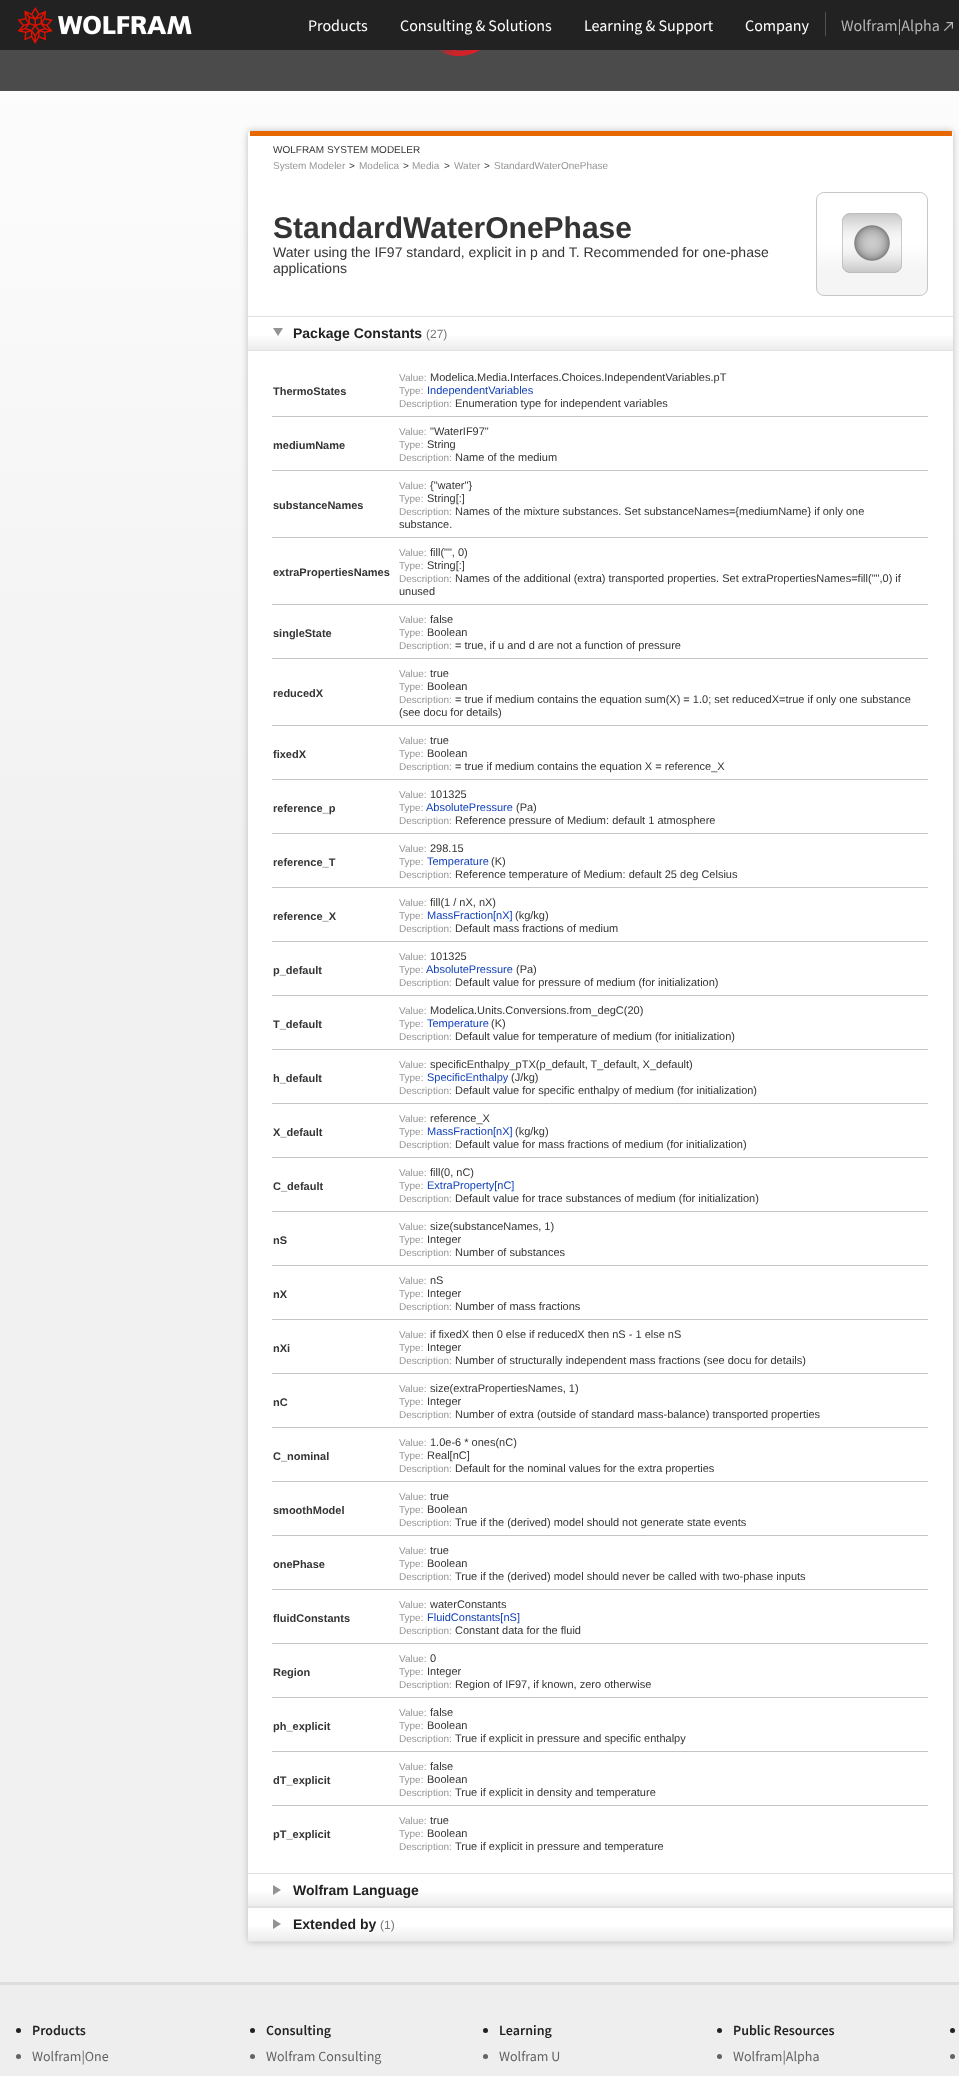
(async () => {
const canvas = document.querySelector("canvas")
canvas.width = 959
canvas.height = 2076
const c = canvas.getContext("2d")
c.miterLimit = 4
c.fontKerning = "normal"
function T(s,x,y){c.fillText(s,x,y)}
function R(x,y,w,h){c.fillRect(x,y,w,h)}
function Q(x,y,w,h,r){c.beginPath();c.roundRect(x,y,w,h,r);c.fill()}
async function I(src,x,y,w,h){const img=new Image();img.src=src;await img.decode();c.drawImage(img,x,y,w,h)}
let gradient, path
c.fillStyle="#fff"
R(0,0,959,2076)
gradient = c.createLinearGradient(499,-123,499,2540)
gradient.addColorStop(0,"#fff")
gradient.addColorStop(.37,"#f1f1f1")
c.fillStyle = gradient
R(0,91,959,1891)
c.fillStyle="#222"
R(0,0,959,50)
await I("1.png",17,7,175,37)
c.font="16px Source Sans Pro"
c.fillStyle="#fff"
T("Products",308,31)
T("Consulting & Solutions",400,31)
T("Learning & Support",584,31)
T("Company",745,31)
c.fillStyle="#525252"
R(825,12,1,24)
c.fillStyle="#b5b5b5"
T("Wolfram|Alpha",841,31)
await I("2.png",944,22,9,9)
c.fillStyle="#4b4b4b"
R(0,50,959,41)
await I("3.png",439,50,41,6)
c.fillStyle="#bbb"
c.filter="blur(3.5px)"
c.beginPath()
c.roundRect(248,131,705,1811,3)
c.fill()
c.filter="none"
c.fillStyle="#fff"
Q(248,131,705,1811,3)
c.fillStyle="#e76801"
R(250,131,702,5)
c.font="10px Liberation Sans"
c.fillStyle="#343434"
T("WOLFRAM SYSTEM MODELER",273,153)
c.fillStyle="#959595"
T("System Modeler",273,169)
c.fillStyle="#343434"
T(">",349,169)
c.fillStyle="#959595"
T("Modelica",359,169)
c.fillStyle="#343434"
T(">",403,169)
c.fillStyle="#959595"
T("Media",412,169)
c.fillStyle="#343434"
T(">",444,169)
c.fillStyle="#959595"
T("Water",454,169)
c.fillStyle="#343434"
T(">",484,169)
c.fillStyle="#959595"
T("StandardWaterOnePhase",494,169)
c.font="bold 30px Liberation Sans"
c.fillStyle="#343434"
T("StandardWaterOnePhase",273,238)
c.font="14px Liberation Sans"
T("Water using the IF97 standard, explicit in p and T. Recommended for one-phase",273,257)
T("applications",273,273)
c.save()
c.beginPath()
c.roundRect(816,192,112,104,8)
c.clip()
gradient = c.createLinearGradient(872,193,872,295)
gradient.addColorStop(.5,"#fff")
gradient.addColorStop(.75,"#f5f5f5")
c.fillStyle = gradient
R(816,193,112,102)
c.restore()
c.beginPath()
c.roundRect(816.5,192.5,111,103,7.5)
c.strokeStyle="#c7c7c7"
c.stroke()
await I("4.png",842,213,60,60)
gradient = c.createLinearGradient(601,317,601,350)
gradient.addColorStop(.5,"#fff")
gradient.addColorStop(1,"#ececec")
c.fillStyle = gradient
R(248,336,705,14)
c.fillStyle="#e1e1e1"
R(248,316,705,1)
R(248,350,705,1)
c.fillStyle="#939393"
path = new Path2D("M273 328h10l-5 8z")
c.fill(path)
c.font="bold 14px Liberation Sans"
c.fillStyle="#222"
T("Package Constants",293,338)
c.font="12px Liberation Sans"
c.fillStyle="#777"
T("(27)",426,338)
c.font="bold 11px Liberation Sans"
c.fillStyle="#343434"
T("ThermoStates",273,395)
c.fillStyle="#c4c4c4"
R(272,416,656,1)
c.font="10px Liberation Sans"
c.fillStyle="#959595"
T("Value:",399,381)
c.font="11px Liberation Sans"
c.fillStyle="#343434"
T("Modelica.Media.Interfaces.Choices.IndependentVariables.pT",430,381)
c.font="10px Liberation Sans"
c.fillStyle="#959595"
T("Type:",399,394)
c.font="11px Liberation Sans"
c.fillStyle="#0e3eb9"
T("IndependentVariables",427,394)
c.font="10px Liberation Sans"
c.fillStyle="#959595"
T("Description:",399,407)
c.font="11px Liberation Sans"
c.fillStyle="#343434"
T("Enumeration type for independent variables",455,407)
c.font="bold 11px Liberation Sans"
T("mediumName",273,449)
c.fillStyle="#c4c4c4"
R(272,470,656,1)
c.font="10px Liberation Sans"
c.fillStyle="#959595"
T("Value:",399,435)
c.font="11px Liberation Sans"
c.fillStyle="#343434"
T("\"WaterIF97\"",430,435)
c.font="10px Liberation Sans"
c.fillStyle="#959595"
T("Type:",399,448)
c.font="11px Liberation Sans"
c.fillStyle="#343434"
T("String",427,448)
c.font="10px Liberation Sans"
c.fillStyle="#959595"
T("Description:",399,461)
c.font="11px Liberation Sans"
c.fillStyle="#343434"
T("Name of the medium",455,461)
c.font="bold 11px Liberation Sans"
T("substanceNames",273,509)
c.fillStyle="#c4c4c4"
R(272,537,656,1)
c.font="10px Liberation Sans"
c.fillStyle="#959595"
T("Value:",399,489)
c.font="11px Liberation Sans"
c.fillStyle="#343434"
T("{\"water\"}",430,489)
c.font="10px Liberation Sans"
c.fillStyle="#959595"
T("Type:",399,502)
c.font="11px Liberation Sans"
c.fillStyle="#343434"
T("String[:]",427,502)
c.font="10px Liberation Sans"
c.fillStyle="#959595"
T("Description:",399,515)
c.font="11px Liberation Sans"
c.fillStyle="#343434"
T("Names of the mixture substances. Set substanceNames={mediumName} if only one",455,515)
T("substance.",399,528)
c.font="bold 11px Liberation Sans"
T("extraPropertiesNames",273,576)
c.fillStyle="#c4c4c4"
R(272,604,656,1)
c.font="10px Liberation Sans"
c.fillStyle="#959595"
T("Value:",399,556)
c.font="11px Liberation Sans"
c.fillStyle="#343434"
T("fill(\"\", 0)",430,556)
c.font="10px Liberation Sans"
c.fillStyle="#959595"
T("Type:",399,569)
c.font="11px Liberation Sans"
c.fillStyle="#343434"
T("String[:]",427,569)
c.font="10px Liberation Sans"
c.fillStyle="#959595"
T("Description:",399,582)
c.font="11px Liberation Sans"
c.fillStyle="#343434"
T("Names of the additional (extra) transported properties. Set extraPropertiesNames=fill(\"\",0) if",455,582)
T("unused",399,595)
c.font="bold 11px Liberation Sans"
T("singleState",273,637)
c.fillStyle="#c4c4c4"
R(272,658,656,1)
c.font="10px Liberation Sans"
c.fillStyle="#959595"
T("Value:",399,623)
c.font="11px Liberation Sans"
c.fillStyle="#343434"
T("false",430,623)
c.font="10px Liberation Sans"
c.fillStyle="#959595"
T("Type:",399,636)
c.font="11px Liberation Sans"
c.fillStyle="#343434"
T("Boolean",427,636)
c.font="10px Liberation Sans"
c.fillStyle="#959595"
T("Description:",399,649)
c.font="11px Liberation Sans"
c.fillStyle="#343434"
T("= true, if u and d are not a function of pressure",455,649)
c.font="bold 11px Liberation Sans"
T("reducedX",273,697)
c.fillStyle="#c4c4c4"
R(272,725,656,1)
c.font="10px Liberation Sans"
c.fillStyle="#959595"
T("Value:",399,677)
c.font="11px Liberation Sans"
c.fillStyle="#343434"
T("true",430,677)
c.font="10px Liberation Sans"
c.fillStyle="#959595"
T("Type:",399,690)
c.font="11px Liberation Sans"
c.fillStyle="#343434"
T("Boolean",427,690)
c.font="10px Liberation Sans"
c.fillStyle="#959595"
T("Description:",399,703)
c.font="11px Liberation Sans"
c.fillStyle="#343434"
T("= true if medium contains the equation sum(X) = 1.0; set reducedX=true if only one substance",455,703)
T("(see docu for details)",399,716)
c.font="bold 11px Liberation Sans"
T("fixedX",273,758)
c.fillStyle="#c4c4c4"
R(272,779,656,1)
c.font="10px Liberation Sans"
c.fillStyle="#959595"
T("Value:",399,744)
c.font="11px Liberation Sans"
c.fillStyle="#343434"
T("true",430,744)
c.font="10px Liberation Sans"
c.fillStyle="#959595"
T("Type:",399,757)
c.font="11px Liberation Sans"
c.fillStyle="#343434"
T("Boolean",427,757)
c.font="10px Liberation Sans"
c.fillStyle="#959595"
T("Description:",399,770)
c.font="11px Liberation Sans"
c.fillStyle="#343434"
T("= true if medium contains the equation X = reference_X",455,770)
c.font="bold 11px Liberation Sans"
T("reference_p",273,812)
c.fillStyle="#c4c4c4"
R(272,833,656,1)
c.font="10px Liberation Sans"
c.fillStyle="#959595"
T("Value:",399,798)
c.font="11px Liberation Sans"
c.fillStyle="#343434"
T("101325",430,798)
c.font="10px Liberation Sans"
c.fillStyle="#959595"
T("Type:",399,811)
c.font="11px Liberation Sans"
c.fillStyle="#0e3eb9"
T("AbsolutePressure",426,811)
c.fillStyle="#343434"
T("(Pa)",516,811)
c.font="10px Liberation Sans"
c.fillStyle="#959595"
T("Description:",399,824)
c.font="11px Liberation Sans"
c.fillStyle="#343434"
T("Reference pressure of Medium: default 1 atmosphere",455,824)
c.font="bold 11px Liberation Sans"
T("reference_T",273,866)
c.fillStyle="#c4c4c4"
R(272,887,656,1)
c.font="10px Liberation Sans"
c.fillStyle="#959595"
T("Value:",399,852)
c.font="11px Liberation Sans"
c.fillStyle="#343434"
T("298.15",430,852)
c.font="10px Liberation Sans"
c.fillStyle="#959595"
T("Type:",399,865)
c.font="11px Liberation Sans"
c.fillStyle="#0e3eb9"
T("Temperature",427,865)
c.fillStyle="#343434"
T("(K)",491,865)
c.font="10px Liberation Sans"
c.fillStyle="#959595"
T("Description:",399,878)
c.font="11px Liberation Sans"
c.fillStyle="#343434"
T("Reference temperature of Medium: default 25 deg Celsius",455,878)
c.font="bold 11px Liberation Sans"
T("reference_X",273,920)
c.fillStyle="#c4c4c4"
R(272,941,656,1)
c.font="10px Liberation Sans"
c.fillStyle="#959595"
T("Value:",399,906)
c.font="11px Liberation Sans"
c.fillStyle="#343434"
T("fill(1 / nX, nX)",430,906)
c.font="10px Liberation Sans"
c.fillStyle="#959595"
T("Type:",399,919)
c.font="11px Liberation Sans"
c.fillStyle="#0e3eb9"
T("MassFraction[nX]",427,919)
c.fillStyle="#343434"
T("(kg/kg)",515,919)
c.font="10px Liberation Sans"
c.fillStyle="#959595"
T("Description:",399,932)
c.font="11px Liberation Sans"
c.fillStyle="#343434"
T("Default mass fractions of medium",455,932)
c.font="bold 11px Liberation Sans"
T("p_default",273,974)
c.fillStyle="#c4c4c4"
R(272,995,656,1)
c.font="10px Liberation Sans"
c.fillStyle="#959595"
T("Value:",399,960)
c.font="11px Liberation Sans"
c.fillStyle="#343434"
T("101325",430,960)
c.font="10px Liberation Sans"
c.fillStyle="#959595"
T("Type:",399,973)
c.font="11px Liberation Sans"
c.fillStyle="#0e3eb9"
T("AbsolutePressure",426,973)
c.fillStyle="#343434"
T("(Pa)",516,973)
c.font="10px Liberation Sans"
c.fillStyle="#959595"
T("Description:",399,986)
c.font="11px Liberation Sans"
c.fillStyle="#343434"
T("Default value for pressure of medium (for initialization)",455,986)
c.font="bold 11px Liberation Sans"
T("T_default",273,1028)
c.fillStyle="#c4c4c4"
R(272,1049,656,1)
c.font="10px Liberation Sans"
c.fillStyle="#959595"
T("Value:",399,1014)
c.font="11px Liberation Sans"
c.fillStyle="#343434"
T("Modelica.Units.Conversions.from_degC(20)",430,1014)
c.font="10px Liberation Sans"
c.fillStyle="#959595"
T("Type:",399,1027)
c.font="11px Liberation Sans"
c.fillStyle="#0e3eb9"
T("Temperature",427,1027)
c.fillStyle="#343434"
T("(K)",491,1027)
c.font="10px Liberation Sans"
c.fillStyle="#959595"
T("Description:",399,1040)
c.font="11px Liberation Sans"
c.fillStyle="#343434"
T("Default value for temperature of medium (for initialization)",455,1040)
c.font="bold 11px Liberation Sans"
T("h_default",273,1082)
c.fillStyle="#c4c4c4"
R(272,1103,656,1)
c.font="10px Liberation Sans"
c.fillStyle="#959595"
T("Value:",399,1068)
c.font="11px Liberation Sans"
c.fillStyle="#343434"
T("specificEnthalpy_pTX(p_default, T_default, X_default)",430,1068)
c.font="10px Liberation Sans"
c.fillStyle="#959595"
T("Type:",399,1081)
c.font="11px Liberation Sans"
c.fillStyle="#0e3eb9"
T("SpecificEnthalpy",427,1081)
c.fillStyle="#343434"
T("(J/kg)",511,1081)
c.font="10px Liberation Sans"
c.fillStyle="#959595"
T("Description:",399,1094)
c.font="11px Liberation Sans"
c.fillStyle="#343434"
T("Default value for specific enthalpy of medium (for initialization)",455,1094)
c.font="bold 11px Liberation Sans"
T("X_default",273,1136)
c.fillStyle="#c4c4c4"
R(272,1157,656,1)
c.font="10px Liberation Sans"
c.fillStyle="#959595"
T("Value:",399,1122)
c.font="11px Liberation Sans"
c.fillStyle="#343434"
T("reference_X",430,1122)
c.font="10px Liberation Sans"
c.fillStyle="#959595"
T("Type:",399,1135)
c.font="11px Liberation Sans"
c.fillStyle="#0e3eb9"
T("MassFraction[nX]",427,1135)
c.fillStyle="#343434"
T("(kg/kg)",515,1135)
c.font="10px Liberation Sans"
c.fillStyle="#959595"
T("Description:",399,1148)
c.font="11px Liberation Sans"
c.fillStyle="#343434"
T("Default value for mass fractions of medium (for initialization)",455,1148)
c.font="bold 11px Liberation Sans"
T("C_default",273,1190)
c.fillStyle="#c4c4c4"
R(272,1211,656,1)
c.font="10px Liberation Sans"
c.fillStyle="#959595"
T("Value:",399,1176)
c.font="11px Liberation Sans"
c.fillStyle="#343434"
T("fill(0, nC)",430,1176)
c.font="10px Liberation Sans"
c.fillStyle="#959595"
T("Type:",399,1189)
c.font="11px Liberation Sans"
c.fillStyle="#0e3eb9"
T("ExtraProperty[nC]",427,1189)
c.font="10px Liberation Sans"
c.fillStyle="#959595"
T("Description:",399,1202)
c.font="11px Liberation Sans"
c.fillStyle="#343434"
T("Default value for trace substances of medium (for initialization)",455,1202)
c.font="bold 11px Liberation Sans"
T("nS",273,1244)
c.fillStyle="#c4c4c4"
R(272,1265,656,1)
c.font="10px Liberation Sans"
c.fillStyle="#959595"
T("Value:",399,1230)
c.font="11px Liberation Sans"
c.fillStyle="#343434"
T("size(substanceNames, 1)",430,1230)
c.font="10px Liberation Sans"
c.fillStyle="#959595"
T("Type:",399,1243)
c.font="11px Liberation Sans"
c.fillStyle="#343434"
T("Integer",427,1243)
c.font="10px Liberation Sans"
c.fillStyle="#959595"
T("Description:",399,1256)
c.font="11px Liberation Sans"
c.fillStyle="#343434"
T("Number of substances",455,1256)
c.font="bold 11px Liberation Sans"
T("nX",273,1298)
c.fillStyle="#c4c4c4"
R(272,1319,656,1)
c.font="10px Liberation Sans"
c.fillStyle="#959595"
T("Value:",399,1284)
c.font="11px Liberation Sans"
c.fillStyle="#343434"
T("nS",430,1284)
c.font="10px Liberation Sans"
c.fillStyle="#959595"
T("Type:",399,1297)
c.font="11px Liberation Sans"
c.fillStyle="#343434"
T("Integer",427,1297)
c.font="10px Liberation Sans"
c.fillStyle="#959595"
T("Description:",399,1310)
c.font="11px Liberation Sans"
c.fillStyle="#343434"
T("Number of mass fractions",455,1310)
c.font="bold 11px Liberation Sans"
T("nXi",273,1352)
c.fillStyle="#c4c4c4"
R(272,1373,656,1)
c.font="10px Liberation Sans"
c.fillStyle="#959595"
T("Value:",399,1338)
c.font="11px Liberation Sans"
c.fillStyle="#343434"
T("if fixedX then 0 else if reducedX then nS - 1 else nS",430,1338)
c.font="10px Liberation Sans"
c.fillStyle="#959595"
T("Type:",399,1351)
c.font="11px Liberation Sans"
c.fillStyle="#343434"
T("Integer",427,1351)
c.font="10px Liberation Sans"
c.fillStyle="#959595"
T("Description:",399,1364)
c.font="11px Liberation Sans"
c.fillStyle="#343434"
T("Number of structurally independent mass fractions (see docu for details)",455,1364)
c.font="bold 11px Liberation Sans"
T("nC",273,1406)
c.fillStyle="#c4c4c4"
R(272,1427,656,1)
c.font="10px Liberation Sans"
c.fillStyle="#959595"
T("Value:",399,1392)
c.font="11px Liberation Sans"
c.fillStyle="#343434"
T("size(extraPropertiesNames, 1)",430,1392)
c.font="10px Liberation Sans"
c.fillStyle="#959595"
T("Type:",399,1405)
c.font="11px Liberation Sans"
c.fillStyle="#343434"
T("Integer",427,1405)
c.font="10px Liberation Sans"
c.fillStyle="#959595"
T("Description:",399,1418)
c.font="11px Liberation Sans"
c.fillStyle="#343434"
T("Number of extra (outside of standard mass-balance) transported properties",455,1418)
c.font="bold 11px Liberation Sans"
T("C_nominal",273,1460)
c.fillStyle="#c4c4c4"
R(272,1481,656,1)
c.font="10px Liberation Sans"
c.fillStyle="#959595"
T("Value:",399,1446)
c.font="11px Liberation Sans"
c.fillStyle="#343434"
T("1.0e-6 * ones(nC)",430,1446)
c.font="10px Liberation Sans"
c.fillStyle="#959595"
T("Type:",399,1459)
c.font="11px Liberation Sans"
c.fillStyle="#343434"
T("Real[nC]",427,1459)
c.font="10px Liberation Sans"
c.fillStyle="#959595"
T("Description:",399,1472)
c.font="11px Liberation Sans"
c.fillStyle="#343434"
T("Default for the nominal values for the extra properties",455,1472)
c.font="bold 11px Liberation Sans"
T("smoothModel",273,1514)
c.fillStyle="#c4c4c4"
R(272,1535,656,1)
c.font="10px Liberation Sans"
c.fillStyle="#959595"
T("Value:",399,1500)
c.font="11px Liberation Sans"
c.fillStyle="#343434"
T("true",430,1500)
c.font="10px Liberation Sans"
c.fillStyle="#959595"
T("Type:",399,1513)
c.font="11px Liberation Sans"
c.fillStyle="#343434"
T("Boolean",427,1513)
c.font="10px Liberation Sans"
c.fillStyle="#959595"
T("Description:",399,1526)
c.font="11px Liberation Sans"
c.fillStyle="#343434"
T("True if the (derived) model should not generate state events",455,1526)
c.font="bold 11px Liberation Sans"
T("onePhase",273,1568)
c.fillStyle="#c4c4c4"
R(272,1589,656,1)
c.font="10px Liberation Sans"
c.fillStyle="#959595"
T("Value:",399,1554)
c.font="11px Liberation Sans"
c.fillStyle="#343434"
T("true",430,1554)
c.font="10px Liberation Sans"
c.fillStyle="#959595"
T("Type:",399,1567)
c.font="11px Liberation Sans"
c.fillStyle="#343434"
T("Boolean",427,1567)
c.font="10px Liberation Sans"
c.fillStyle="#959595"
T("Description:",399,1580)
c.font="11px Liberation Sans"
c.fillStyle="#343434"
T("True if the (derived) model should never be called with two-phase inputs",455,1580)
c.font="bold 11px Liberation Sans"
T("fluidConstants",273,1622)
c.fillStyle="#c4c4c4"
R(272,1643,656,1)
c.font="10px Liberation Sans"
c.fillStyle="#959595"
T("Value:",399,1608)
c.font="11px Liberation Sans"
c.fillStyle="#343434"
T("waterConstants",430,1608)
c.font="10px Liberation Sans"
c.fillStyle="#959595"
T("Type:",399,1621)
c.font="11px Liberation Sans"
c.fillStyle="#0e3eb9"
T("FluidConstants[nS]",427,1621)
c.font="10px Liberation Sans"
c.fillStyle="#959595"
T("Description:",399,1634)
c.font="11px Liberation Sans"
c.fillStyle="#343434"
T("Constant data for the fluid",455,1634)
c.font="bold 11px Liberation Sans"
T("Region",273,1676)
c.fillStyle="#c4c4c4"
R(272,1697,656,1)
c.font="10px Liberation Sans"
c.fillStyle="#959595"
T("Value:",399,1662)
c.font="11px Liberation Sans"
c.fillStyle="#343434"
T("0",430,1662)
c.font="10px Liberation Sans"
c.fillStyle="#959595"
T("Type:",399,1675)
c.font="11px Liberation Sans"
c.fillStyle="#343434"
T("Integer",427,1675)
c.font="10px Liberation Sans"
c.fillStyle="#959595"
T("Description:",399,1688)
c.font="11px Liberation Sans"
c.fillStyle="#343434"
T("Region of IF97, if known, zero otherwise",455,1688)
c.font="bold 11px Liberation Sans"
T("ph_explicit",273,1730)
c.fillStyle="#c4c4c4"
R(272,1751,656,1)
c.font="10px Liberation Sans"
c.fillStyle="#959595"
T("Value:",399,1716)
c.font="11px Liberation Sans"
c.fillStyle="#343434"
T("false",430,1716)
c.font="10px Liberation Sans"
c.fillStyle="#959595"
T("Type:",399,1729)
c.font="11px Liberation Sans"
c.fillStyle="#343434"
T("Boolean",427,1729)
c.font="10px Liberation Sans"
c.fillStyle="#959595"
T("Description:",399,1742)
c.font="11px Liberation Sans"
c.fillStyle="#343434"
T("True if explicit in pressure and specific enthalpy",455,1742)
c.font="bold 11px Liberation Sans"
T("dT_explicit",273,1784)
c.fillStyle="#c4c4c4"
R(272,1805,656,1)
c.font="10px Liberation Sans"
c.fillStyle="#959595"
T("Value:",399,1770)
c.font="11px Liberation Sans"
c.fillStyle="#343434"
T("false",430,1770)
c.font="10px Liberation Sans"
c.fillStyle="#959595"
T("Type:",399,1783)
c.font="11px Liberation Sans"
c.fillStyle="#343434"
T("Boolean",427,1783)
c.font="10px Liberation Sans"
c.fillStyle="#959595"
T("Description:",399,1796)
c.font="11px Liberation Sans"
c.fillStyle="#343434"
T("True if explicit in density and temperature",455,1796)
c.font="bold 11px Liberation Sans"
T("pT_explicit",273,1838)
c.font="10px Liberation Sans"
c.fillStyle="#959595"
T("Value:",399,1824)
c.font="11px Liberation Sans"
c.fillStyle="#343434"
T("true",430,1824)
c.font="10px Liberation Sans"
c.fillStyle="#959595"
T("Type:",399,1837)
c.font="11px Liberation Sans"
c.fillStyle="#343434"
T("Boolean",427,1837)
c.font="10px Liberation Sans"
c.fillStyle="#959595"
T("Description:",399,1850)
c.font="11px Liberation Sans"
c.fillStyle="#343434"
T("True if explicit in pressure and temperature",455,1850)
gradient = c.createLinearGradient(601,1874,601,1906)
gradient.addColorStop(.5,"#fff")
gradient.addColorStop(1,"#ececec")
c.fillStyle = gradient
R(248,1892,705,14)
c.fillStyle="#e1e1e1"
R(248,1873,705,1)
R(248,1906,705,2)
c.fillStyle="#939393"
path = new Path2D("M273 1895v-10l8 5z")
c.fill(path)
c.font="bold 14px Liberation Sans"
c.fillStyle="#222"
T("Wolfram Language",293,1895)
gradient = c.createLinearGradient(601,1908,601,1941)
gradient.addColorStop(.5,"#fff")
gradient.addColorStop(1,"#ececec")
c.fillStyle = gradient
R(248,1927,705,14)
c.fillStyle="#e1e1e1"
R(248,1941,705,1)
c.fillStyle="#939393"
path = new Path2D("M273 1929v-10l8 5z")
c.fill(path)
c.fillStyle="#222"
T("Extended by",293,1929)
c.font="12px Liberation Sans"
c.fillStyle="#777"
T("(1)",380,1929)
c.fillStyle="#eee"
R(0,1985,959,91)
c.fillStyle="#ddd"
R(0,1982,959,3)
c.fillStyle="#222"
c.beginPath()
c.arc(18.5,2030.5,2.5,0,7)
c.fill()
c.font="600 14px Source Sans Pro"
T("Products",32,2035)
c.fillStyle="#636363"
c.beginPath()
c.arc(18.5,2056.5,2.5,0,7)
c.fill()
c.font="14px Source Sans Pro"
T("Wolfram|One",32,2061)
c.fillStyle="#222"
c.beginPath()
c.arc(252.5,2030.5,2.5,0,7)
c.fill()
c.font="600 14px Source Sans Pro"
T("Consulting",266,2035)
c.fillStyle="#636363"
c.beginPath()
c.arc(252.5,2056.5,2.5,0,7)
c.fill()
c.font="14px Source Sans Pro"
T("Wolfram Consulting",266,2061)
c.fillStyle="#222"
c.beginPath()
c.arc(485.5,2030.5,2.5,0,7)
c.fill()
c.font="600 14px Source Sans Pro"
T("Learning",499,2035)
c.fillStyle="#636363"
c.beginPath()
c.arc(485.5,2056.5,2.5,0,7)
c.fill()
c.font="14px Source Sans Pro"
T("Wolfram U",499,2061)
c.fillStyle="#222"
c.beginPath()
c.arc(719.5,2030.5,2.5,0,7)
c.fill()
c.font="600 14px Source Sans Pro"
T("Public Resources",733,2035)
c.fillStyle="#636363"
c.beginPath()
c.arc(719.5,2056.5,2.5,0,7)
c.fill()
c.font="14px Source Sans Pro"
T("Wolfram|Alpha",733,2061)
c.fillStyle="#222"
c.beginPath()
c.arc(952.5,2030.5,2.5,0,7)
c.fill()
c.fillStyle="#636363"
c.beginPath()
c.arc(952.5,2056.5,2.5,0,7)
c.fill()
})()
